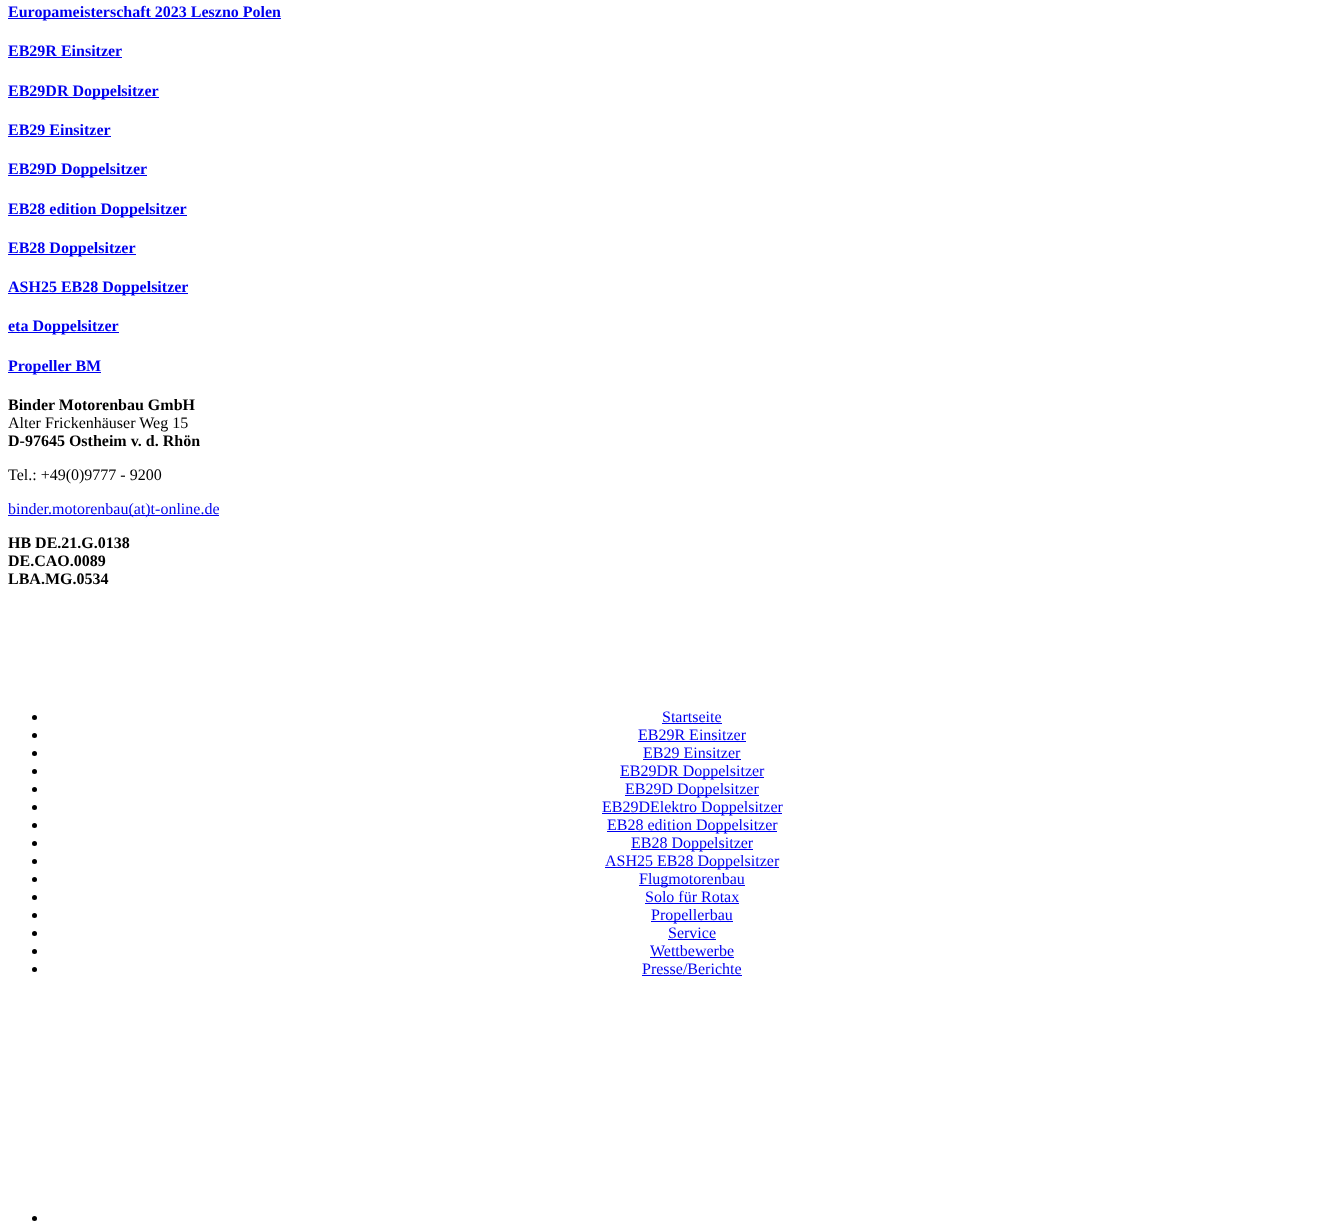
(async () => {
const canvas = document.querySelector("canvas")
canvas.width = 1344
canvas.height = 1229
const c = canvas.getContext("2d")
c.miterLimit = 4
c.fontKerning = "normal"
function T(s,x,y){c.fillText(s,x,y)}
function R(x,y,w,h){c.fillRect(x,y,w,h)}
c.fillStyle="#fff"
R(0,0,1344,1229)
c.fillStyle="#00e"
R(8,18,273,1)
c.font="bold 16px Liberation Serif"
T("Europameisterschaft 2023 Leszno Polen",8,17)
T("EB29R Einsitzer",8,56)
R(8,57,114,1)
R(8,97,151,1)
T("EB29DR Doppelsitzer",8,96)
T("EB29 Einsitzer",8,135)
R(8,136,103,1)
R(8,175,139,1)
T("EB29D Doppelsitzer",8,174)
R(8,215,179,1)
T("EB28 edition Doppelsitzer",8,214)
R(8,254,128,1)
T("EB28 Doppelsitzer",8,253)
R(8,293,180,1)
T("ASH25 EB28 Doppelsitzer",8,292)
R(8,332,111,1)
T("eta Doppelsitzer",8,331)
R(8,372,93,1)
T("Propeller BM",8,371)
c.fillStyle="#000"
T("Binder Motorenbau GmbH",8,410)
c.font="16px Liberation Serif"
T("Alter Frickenhäuser Weg 15",8,428)
c.font="bold 16px Liberation Serif"
T("D-97645 Ostheim v. d. Rhön",8,446)
c.font="16px Liberation Serif"
T("Tel.: +49(0)9777 - 9200",8,480)
c.fillStyle="#00e"
R(8,515,211,1)
T("binder.motorenbau(at)t-online.de",8,514)
c.font="bold 16px Liberation Serif"
c.fillStyle="#000"
T("HB DE.21.G.0138",8,548)
T("DE.CAO.0089",8,566)
T("LBA.MG.0534",8,584)
c.beginPath()
c.arc(34.5,717.5,2.5,0,7)
c.fill()
c.font="16px Liberation Serif"
c.fillStyle="#00e"
T("Startseite",662,722)
R(662,723,60,1)
c.fillStyle="#000"
c.beginPath()
c.arc(34.5,735.5,2.5,0,7)
c.fill()
c.fillStyle="#00e"
T("EB29R Einsitzer",638,740)
R(638,741,108,1)
c.fillStyle="#000"
c.beginPath()
c.arc(34.5,753.5,2.5,0,7)
c.fill()
c.fillStyle="#00e"
T("EB29 Einsitzer",643,758)
R(643,759,98,1)
c.fillStyle="#000"
c.beginPath()
c.arc(34.5,771.5,2.5,0,7)
c.fill()
c.fillStyle="#00e"
R(620,777,144,1)
T("EB29DR Doppelsitzer",620,776)
c.fillStyle="#000"
c.beginPath()
c.arc(34.5,789.5,2.5,0,7)
c.fill()
c.fillStyle="#00e"
R(625,795,134,1)
T("EB29D Doppelsitzer",625,794)
c.fillStyle="#000"
c.beginPath()
c.arc(34.5,807.5,2.5,0,7)
c.fill()
c.fillStyle="#00e"
R(602,813,180,1)
T("EB29DElektro Doppelsitzer",602,812)
c.fillStyle="#000"
c.beginPath()
c.arc(34.5,825.5,2.5,0,7)
c.fill()
c.fillStyle="#00e"
R(607,831,170,1)
T("EB28 edition Doppelsitzer",607,830)
c.fillStyle="#000"
c.beginPath()
c.arc(34.5,843.5,2.5,0,7)
c.fill()
c.fillStyle="#00e"
R(631,849,122,1)
T("EB28 Doppelsitzer",631,848)
c.fillStyle="#000"
c.beginPath()
c.arc(34.5,861.5,2.5,0,7)
c.fill()
c.fillStyle="#00e"
R(605,867,174,1)
T("ASH25 EB28 Doppelsitzer",605,866)
c.fillStyle="#000"
c.beginPath()
c.arc(34.5,879.5,2.5,0,7)
c.fill()
c.fillStyle="#00e"
R(639,885,106,1)
T("Flugmotorenbau",639,884)
c.fillStyle="#000"
c.beginPath()
c.arc(34.5,897.5,2.5,0,7)
c.fill()
c.fillStyle="#00e"
T("Solo für Rotax",645,902)
R(645,903,94,1)
c.fillStyle="#000"
c.beginPath()
c.arc(34.5,915.5,2.5,0,7)
c.fill()
c.fillStyle="#00e"
R(651,921,82,1)
T("Propellerbau",651,920)
c.fillStyle="#000"
c.beginPath()
c.arc(34.5,933.5,2.5,0,7)
c.fill()
c.fillStyle="#00e"
T("Service",668,938)
R(668,939,48,1)
c.fillStyle="#000"
c.beginPath()
c.arc(34.5,951.5,2.5,0,7)
c.fill()
c.fillStyle="#00e"
T("Wettbewerbe",650,956)
R(650,957,84,1)
c.fillStyle="#000"
c.beginPath()
c.arc(34.5,969.5,2.5,0,7)
c.fill()
c.fillStyle="#00e"
T("Presse/Berichte",642,974)
R(642,975,100,1)
c.fillStyle="#000"
c.beginPath()
c.arc(34.5,1218.5,2.5,0,7)
c.fill()
})()
